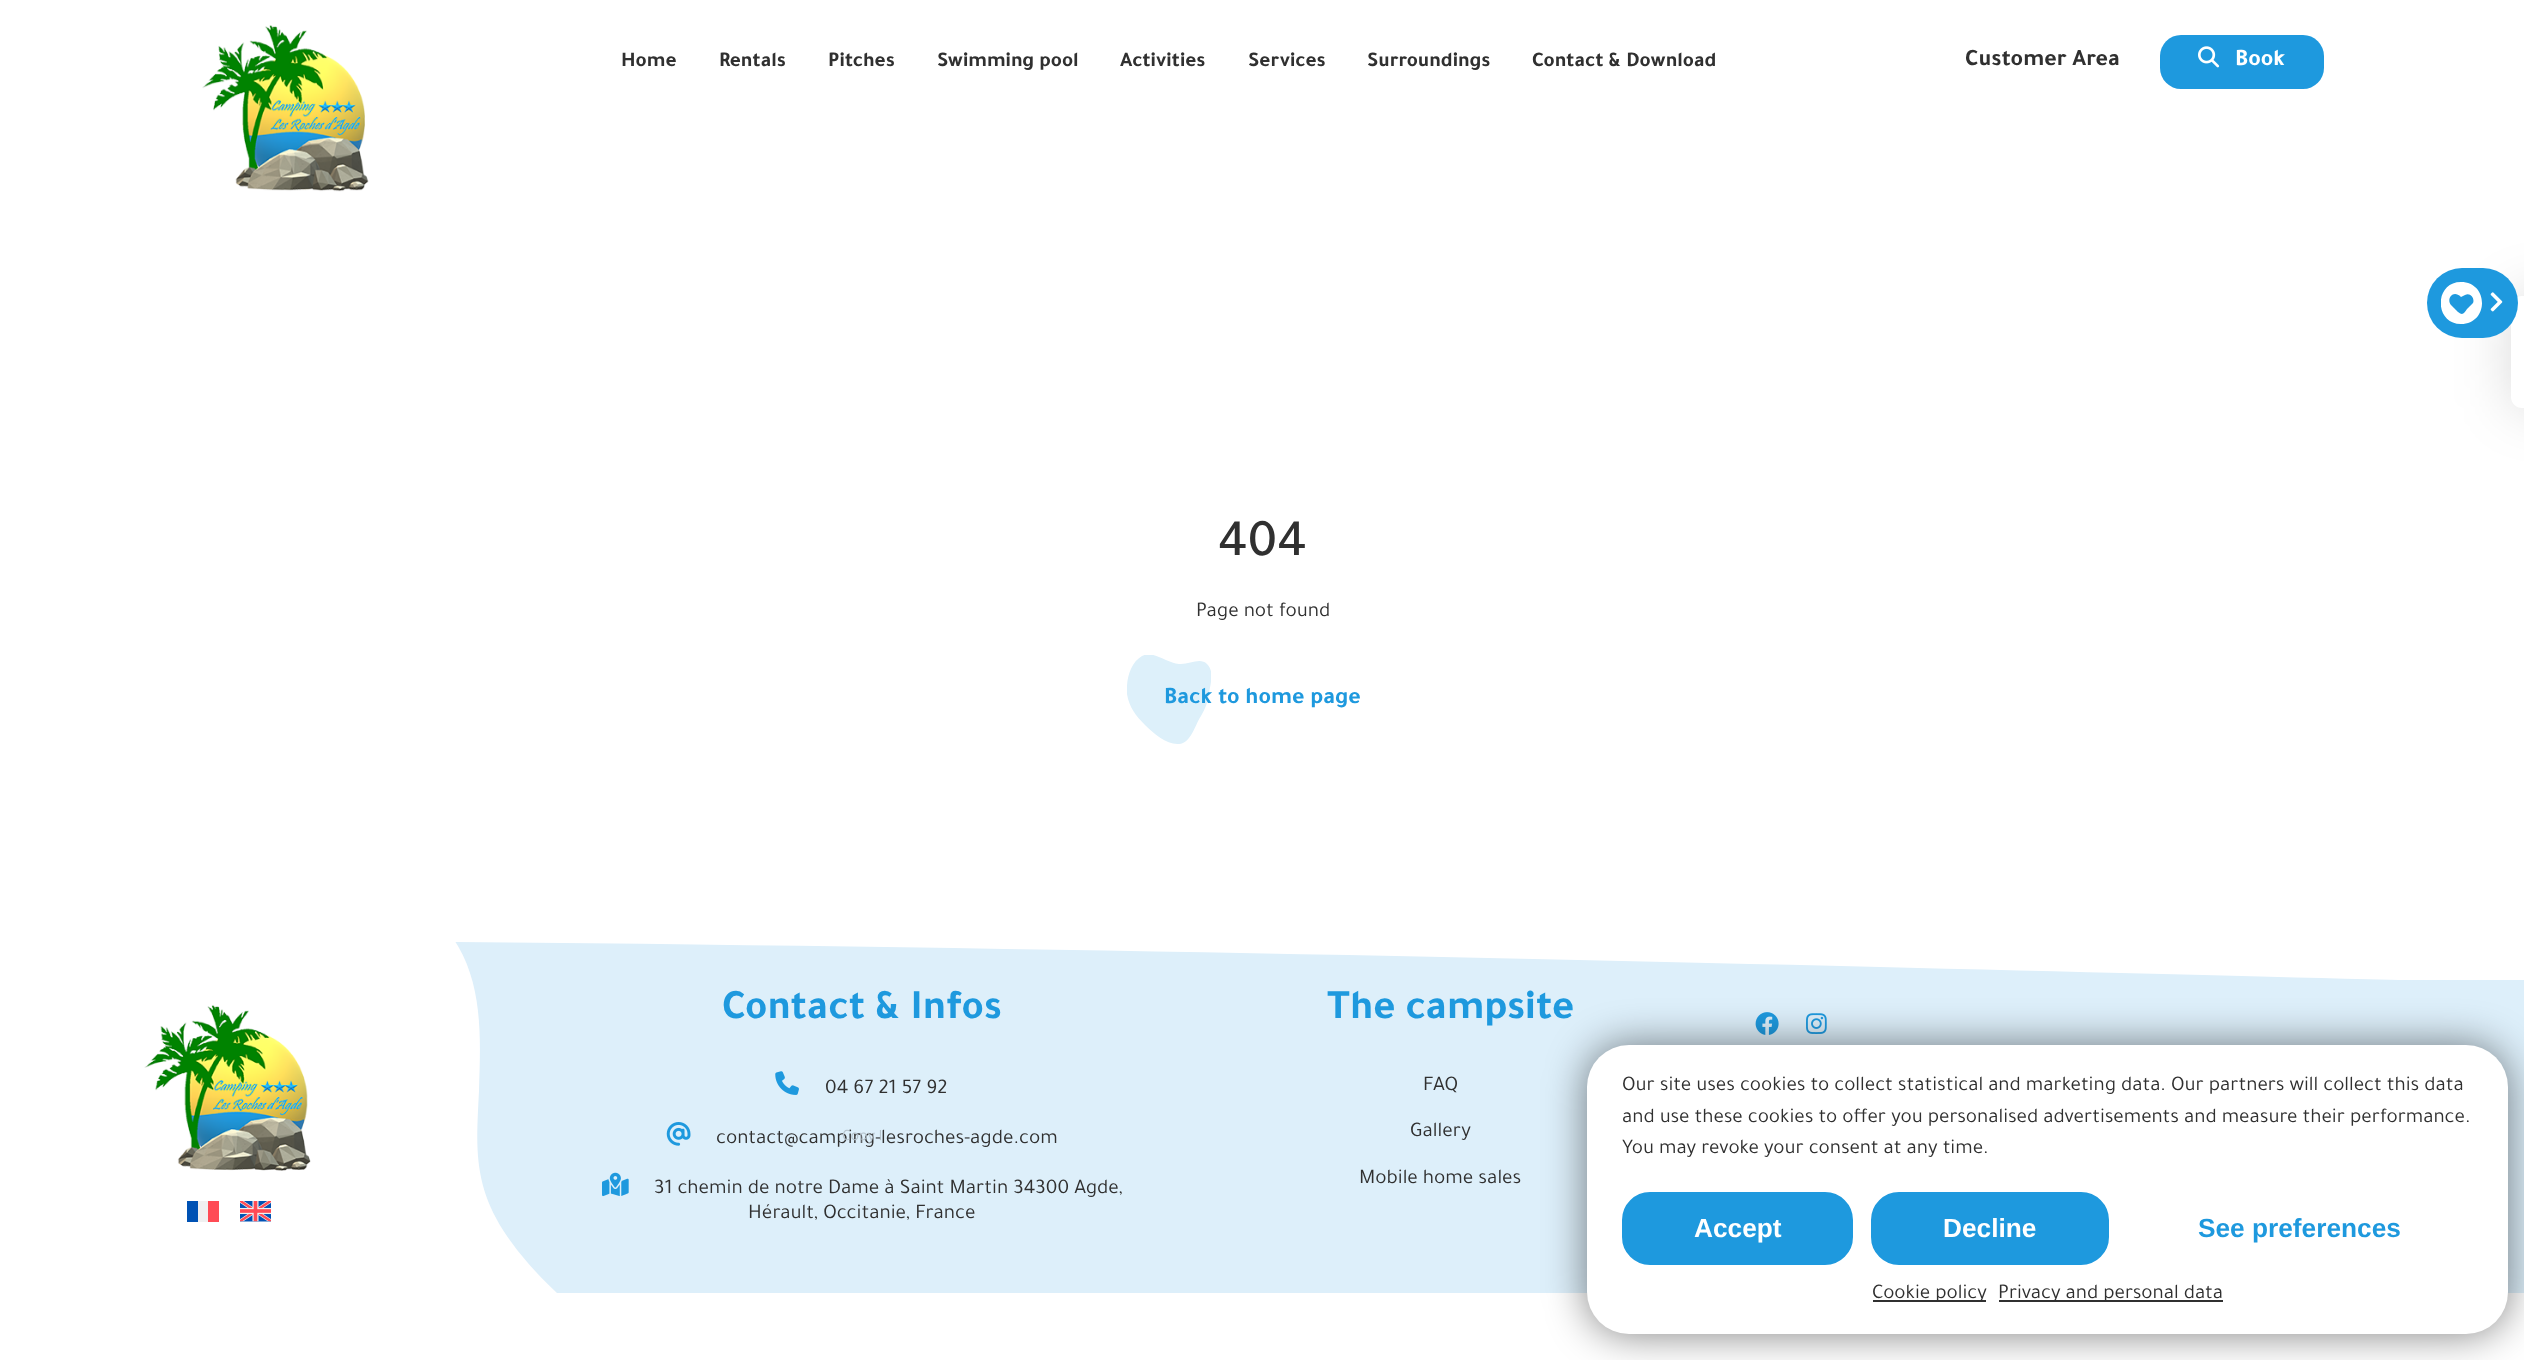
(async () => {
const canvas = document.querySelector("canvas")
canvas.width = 2524
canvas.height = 1360
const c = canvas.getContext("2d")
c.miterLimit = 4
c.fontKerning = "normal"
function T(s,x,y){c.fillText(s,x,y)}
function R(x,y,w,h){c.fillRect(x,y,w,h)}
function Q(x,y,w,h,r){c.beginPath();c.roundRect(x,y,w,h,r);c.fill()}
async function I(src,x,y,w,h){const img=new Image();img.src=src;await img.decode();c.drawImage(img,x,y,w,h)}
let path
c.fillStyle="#fff"
R(0,0,2524,1360)
await I("1.png",202,25,167,167)
c.font="bold 21.1px Tajawal"
c.fillStyle="#303030"
T("Home",621,66)
T("Rentals",719,66)
T("Pitches",828,66)
T("Swimming pool",937,66)
T("Activities",1120,66)
T("Services",1248,66)
T("Surroundings",1367,66)
T("Contact & Download",1532,66)
c.font="bold 23.75px Tajawal"
T("Customer Area",1965,65)
c.fillStyle="#1e99de"
Q(2160,35,164,54,21)
await I("2.png",2198,46,22,22)
c.fillStyle="#fff"
T("Book",2235,65)
c.fillStyle="#00000026"
c.filter="blur(28px)"
c.beginPath()
c.roundRect(2511,296,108,112,11)
c.fill()
c.filter="none"
c.fillStyle="#fff"
Q(2511,296,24,112,11)
c.fillStyle="#1e99de"
Q(2427,268,91,70,35)
c.save()
c.beginPath()
c.rect(2441,282,42,42)
c.clip()
c.fillStyle="#fff"
path = new Path2D("M2461 324c28 0 28-42 0-42c-27 0-27 42 0 42zm-10-19c-5-6 2-16 10-8l4-2c5-3 10 3 8 8l-6 6c-3 4-4 7-9 3z")
c.fill(path)
c.restore()
await I("3.png",2490,292,13,20)
c.font="500 53px Tajawal"
c.fillStyle="#303030"
T("404",1218,555)
c.font="21.1px Tajawal"
T("Page not found",1196,616)
c.save()
c.beginPath()
c.rect(1127,655,84,91)
c.clip()
c.fillStyle="#ddf0fa"
path = new Path2D("M1179 664c10 1 21-7 28 0c8 8 3 20 2 30c-1 8-4 15-8 22c-7 11-10 27-22 28c-12 1-25-10-34-19c-9-9-16-18-18-31c-1-14 3-31 15-38c12-6 24 7 37 8z")
c.fill(path,"evenodd")
c.restore()
c.font="bold 23.75px Tajawal"
c.fillStyle="#1e99de"
T("Back to home page",1164,703)
c.fillStyle="#ddeffa"
R(472,980,2052,313)
path = new Path2D("M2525 982c-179 0-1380-42-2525-42v42z")
c.fill(path)
c.fillStyle="#fff"
path = new Path2D("M479 1091c-4 77-8 119 78 202h-557v-355h453c30 44 28 99 26 153z")
c.fill(path,"evenodd")
await I("4.png",144,1005,167,166)
c.fillStyle="#0052b4"
R(187,1201,11,21)
c.fillStyle="#f0f0f0"
R(198,1201,10,21)
c.fillStyle="#ff4b55"
R(208,1201,11,21)
await I("5.png",240,1201,31,21)
c.font="bold 42.25px Tajawal"
c.fillStyle="#1e99de"
T("Contact & Infos",722,1018)
await I("6.png",775,1071,24,24)
c.font="21.1px Tajawal"
c.fillStyle="#303030"
T("04 67 21 57 92",825,1093)
await I("7.png",666,1122,25,24)
T("contact@camping-lesroches-agde.com",716,1143)
c.font="16px Tajawal"
c.fillStyle="#b6c3cc"
T("Copy !",842,1140)
await I("8.png",602,1172,27,25)
c.font="21.1px Tajawal"
c.fillStyle="#303030"
T("31 chemin de notre Dame à Saint Martin 34300 Agde,",654,1193)
T("Hérault, Occitanie, France",748,1218)
c.font="bold 42.25px Tajawal"
c.fillStyle="#1e99de"
T("The campsite",1327,1018)
c.font="21.1px Tajawal"
c.fillStyle="#303030"
T("FAQ",1423,1090)
T("Gallery",1410,1136)
T("Mobile home sales",1359,1183)
await I("9.png",1755,1012,24,23)
await I("10.png",1806,1013,21,21)
c.fillStyle="#00000080"
c.filter="blur(21px)"
c.beginPath()
c.roundRect(1587,1045,921,289,42)
c.fill()
c.filter="none"
c.fillStyle="#fff"
Q(1587,1045,921,289,42)
c.font="21px Tajawal"
c.fillStyle="#303030"
T("Our site uses cookies to collect statistical and marketing data. Our partners will collect this data",1622,1090)
T("and use these cookies to offer you personalised advertisements and measure their performance.",1622,1122)
T("You may revoke your consent at any time.",1622,1153)
c.fillStyle="#1e99de"
c.beginPath()
c.roundRect(1623,1193,229,71,27)
c.fill()
c.strokeStyle="#1e99de"
c.lineWidth=2
c.stroke()
c.font="bold 26.25px Liberation Sans"
c.fillStyle="#fff"
T("Accept",1694,1237)
c.fillStyle="#1e99de"
c.beginPath()
c.roundRect(1872,1193,236,71,27)
c.fill()
c.stroke()
c.fillStyle="#fff"
T("Decline",1943,1237)
c.fillStyle="#1e99de"
T("See preferences",2198,1237)
c.fillStyle="#303030"
R(1873,1300,113,2)
c.font="21px Tajawal"
T("Cookie policy",1872,1298)
R(1999,1300,224,2)
T("Privacy and personal data",1998,1298)
})()
